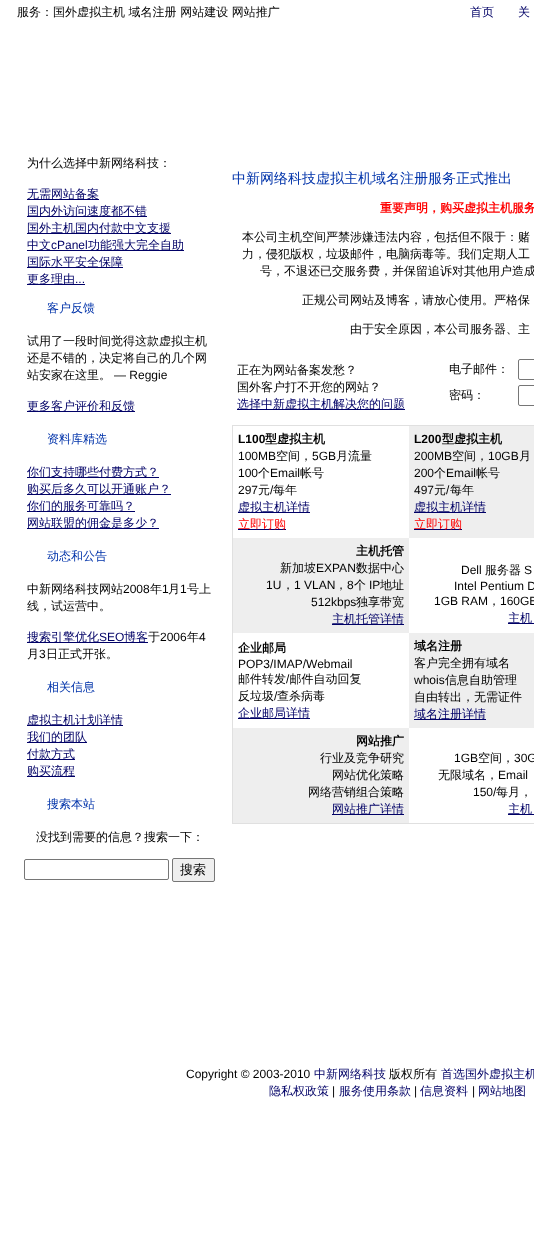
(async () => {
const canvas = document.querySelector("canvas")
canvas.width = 534
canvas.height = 1246
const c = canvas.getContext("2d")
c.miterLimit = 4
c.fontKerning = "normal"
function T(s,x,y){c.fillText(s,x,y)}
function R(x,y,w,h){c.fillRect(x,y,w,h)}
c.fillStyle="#fff"
R(0,0,534,1246)
c.font="500 12px WenQuanYi Zen Hei"
c.fillStyle="#000"
T("服务：国外虚拟主机 域名注册 网站建设 网站推广",17,16)
c.fillStyle="#006"
T("首页",470,16)
T("关",518,16)
c.fillStyle="#000"
T("为什么选择中新网络科技：",27,167)
c.fillStyle="#006"
R(27,199,72,1)
T("无需网站备案",27,198)
R(27,216,120,1)
T("国内外访问速度都不错",27,215)
R(27,233,144,1)
T("国外主机国内付款中文支援",27,232)
R(27,250,157,1)
T("中文",27,249)
c.font="12px Liberation Sans"
T("cPanel",51,249)
c.font="500 12px WenQuanYi Zen Hei"
T("功能强大完全自助",88,249)
R(27,267,96,1)
T("国际水平安全保障",27,266)
R(27,284,58,1)
T("更多理由",27,283)
c.font="12px Liberation Sans"
T("...",75,283)
c.font="500 14px WenQuanYi Zen Hei"
c.fillStyle="#03a"
T("中新网络科技虚拟主机域名注册服务正式推出",232,183)
c.font="bold 12px WenQuanYi Zen Hei"
c.fillStyle="#f00"
T("重要声明，购买虚拟主机服务",380,212)
c.font="500 12px WenQuanYi Zen Hei"
c.fillStyle="#000"
T("本公司主机空间严禁涉嫌违法内容，包括但不限于：赌",242,241)
T("力，侵犯版权，垃圾邮件，电脑病毒等。我们定期人工",242,258)
T("号，不退还已交服务费，并保留追诉对其他用户造成",260,275)
T("正规公司网站及博客，请放心使用。严格保",302,304)
T("由于安全原因，本公司服务器、主",350,333)
T("正在为网站备案发愁？",237,374)
T("国外客户打不开您的网站？",237,391)
c.fillStyle="#006"
R(237,409,168,1)
T("选择中新虚拟主机解决您的问题",237,408)
c.fillStyle="#000"
T("电子邮件：",449,373)
c.beginPath()
c.roundRect(518.5,359.5,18,20,1.5)
c.strokeStyle="#767676"
c.stroke()
T("密码：",449,399)
c.beginPath()
c.roundRect(518.5,385.5,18,20,1.5)
c.stroke()
c.strokeStyle="#e0e0e0"
c.strokeRect(232.5,425.5,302,398)
c.font="bold 12px Liberation Sans"
T("L100",238,443)
c.font="bold 12px WenQuanYi Zen Hei"
T("型虚拟主机",265,443)
c.font="12px Liberation Sans"
T("100MB",238,460)
c.font="500 12px WenQuanYi Zen Hei"
T("空间，",276,460)
c.font="12px Liberation Sans"
T("5GB",312,460)
c.font="500 12px WenQuanYi Zen Hei"
T("月流量",336,460)
c.font="12px Liberation Sans"
T("100",238,477)
c.font="500 12px WenQuanYi Zen Hei"
T("个",258,477)
c.font="12px Liberation Sans"
T("Email",270,477)
c.font="500 12px WenQuanYi Zen Hei"
T("帐号",300,477)
c.font="12px Liberation Sans"
T("297",238,494)
c.font="500 12px WenQuanYi Zen Hei"
T("元",258,494)
c.font="12px Liberation Sans"
T("/",270,494)
c.font="500 12px WenQuanYi Zen Hei"
T("每年",273,494)
c.fillStyle="#006"
R(238,512,72,1)
T("虚拟主机详情",238,511)
R(238,529,48,1)
c.fillStyle="#f00"
T("立即订购",238,528)
c.fillStyle="#eee"
R(409,426,125,112)
c.font="bold 12px Liberation Sans"
c.fillStyle="#000"
T("L200",414,443)
c.font="bold 12px WenQuanYi Zen Hei"
T("型虚拟主机",442,443)
c.font="12px Liberation Sans"
T("200MB",414,460)
c.font="500 12px WenQuanYi Zen Hei"
T("空间，",452,460)
c.font="12px Liberation Sans"
T("10GB",488,460)
c.font="500 12px WenQuanYi Zen Hei"
T("月",519,460)
c.font="12px Liberation Sans"
T("200",414,477)
c.font="500 12px WenQuanYi Zen Hei"
T("个",434,477)
c.font="12px Liberation Sans"
T("Email",446,477)
c.font="500 12px WenQuanYi Zen Hei"
T("帐号",476,477)
c.font="12px Liberation Sans"
T("497",414,494)
c.font="500 12px WenQuanYi Zen Hei"
T("元",434,494)
c.font="12px Liberation Sans"
T("/",446,494)
c.font="500 12px WenQuanYi Zen Hei"
T("每年",450,494)
c.fillStyle="#006"
R(414,512,72,1)
T("虚拟主机详情",414,511)
R(414,529,48,1)
c.fillStyle="#f00"
T("立即订购",414,528)
c.fillStyle="#eee"
R(233,538,176,95)
c.font="bold 12px WenQuanYi Zen Hei"
c.fillStyle="#000"
T("主机托管",356,555)
c.font="500 12px WenQuanYi Zen Hei"
T("新加坡",280,572)
c.font="12px Liberation Sans"
T("EXPAN",316,572)
c.font="500 12px WenQuanYi Zen Hei"
T("数据中心",356,572)
c.font="12px Liberation Sans"
T("1U",266,589)
c.font="500 12px WenQuanYi Zen Hei"
T("，",282,589)
c.font="12px Liberation Sans"
T("1 VLAN",294,589)
c.font="500 12px WenQuanYi Zen Hei"
T("，",335,589)
c.font="12px Liberation Sans"
T("8",347,589)
c.font="500 12px WenQuanYi Zen Hei"
T("个",354,589)
c.font="12px Liberation Sans"
T("IP",369,589)
c.font="500 12px WenQuanYi Zen Hei"
T("地址",380,589)
c.font="12px Liberation Sans"
T("512kbps",311,606)
c.font="500 12px WenQuanYi Zen Hei"
T("独享带宽",356,606)
c.fillStyle="#006"
R(332,624,72,1)
T("主机托管详情",332,623)
c.font="12px Liberation Sans"
c.fillStyle="#000"
T("Dell",461,574)
c.font="500 12px WenQuanYi Zen Hei"
T("服务器",485,574)
c.font="12px Liberation Sans"
T("S",524,574)
T("Intel Pentium D",454,590)
T("1GB RAM",434,605)
c.font="500 12px WenQuanYi Zen Hei"
T("，",488,605)
c.font="12px Liberation Sans"
T("160GB",500,605)
c.fillStyle="#006"
R(508,623,26,1)
c.font="500 12px WenQuanYi Zen Hei"
T("主机",508,622)
c.font="bold 12px WenQuanYi Zen Hei"
c.fillStyle="#000"
T("企业邮局",238,652)
c.font="12px Liberation Sans"
T("POP3/IMAP/Webmail",238,668)
c.font="500 12px WenQuanYi Zen Hei"
T("邮件转发 邮件自动回复",238,683)
c.font="12px Liberation Sans"
T("/",286,683)
c.font="500 12px WenQuanYi Zen Hei"
T("反垃圾",238,700)
c.font="12px Liberation Sans"
T("/",274,700)
c.font="500 12px WenQuanYi Zen Hei"
T("查杀病毒",277,700)
c.fillStyle="#006"
R(238,718,72,1)
T("企业邮局详情",238,717)
c.fillStyle="#eee"
R(409,633,125,95)
c.font="bold 12px WenQuanYi Zen Hei"
c.fillStyle="#000"
T("域名注册",414,650)
c.font="500 12px WenQuanYi Zen Hei"
T("客户完全拥有域名",414,667)
c.font="12px Liberation Sans"
T("whois",414,684)
c.font="500 12px WenQuanYi Zen Hei"
T("信息自助管理",445,684)
T("自由转出，无需证件",414,701)
c.fillStyle="#006"
R(414,719,72,1)
T("域名注册详情",414,718)
c.fillStyle="#eee"
R(233,728,176,95)
c.font="bold 12px WenQuanYi Zen Hei"
c.fillStyle="#000"
T("网站推广",356,745)
c.font="500 12px WenQuanYi Zen Hei"
T("行业及竞争研究",320,762)
T("网站优化策略",332,779)
T("网络营销组合策略",308,796)
c.fillStyle="#006"
R(332,814,72,1)
T("网站推广详情",332,813)
c.font="12px Liberation Sans"
c.fillStyle="#000"
T("1GB",454,762)
c.font="500 12px WenQuanYi Zen Hei"
T("空间，",478,762)
c.font="12px Liberation Sans"
T("30G",514,762)
c.font="500 12px WenQuanYi Zen Hei"
T("无限域名，",438,779)
c.font="12px Liberation Sans"
T("Email",498,779)
T("150/",473,796)
c.font="500 12px WenQuanYi Zen Hei"
T("每月，",496,796)
c.fillStyle="#006"
R(508,814,26,1)
T("主机",508,813)
c.fillStyle="#03a"
T("客户反馈",47,312)
c.fillStyle="#000"
T("试用了一段时间觉得这款虚拟主机",27,345)
T("还是不错的，决定将自己的几个网",27,362)
T("站安家在这里。",27,379)
c.font="12px Liberation Sans"
T("— Reggie",114,379)
c.fillStyle="#006"
R(27,411,108,1)
c.font="500 12px WenQuanYi Zen Hei"
T("更多客户评价和反馈",27,410)
c.fillStyle="#03a"
T("资料库精选",47,443)
c.fillStyle="#006"
R(27,477,132,1)
T("你们支持哪些付费方式？",27,476)
R(27,494,144,1)
T("购买后多久可以开通账户？",27,493)
R(27,511,108,1)
T("你们的服务可靠吗？",27,510)
R(27,528,132,1)
T("网站联盟的佣金是多少？",27,527)
c.fillStyle="#03a"
T("动态和公告",47,560)
c.fillStyle="#000"
T("中新网络科技网站",27,593)
c.font="12px Liberation Sans"
T("2008",123,593)
c.font="500 12px WenQuanYi Zen Hei"
T("年",150,593)
c.font="12px Liberation Sans"
T("1",162,593)
c.font="500 12px WenQuanYi Zen Hei"
T("月",168,593)
c.font="12px Liberation Sans"
T("1",180,593)
c.font="500 12px WenQuanYi Zen Hei"
T("号上",187,593)
T("线，试运营中。",27,610)
c.fillStyle="#006"
R(27,642,121,1)
T("搜索引擎优化",27,641)
c.font="12px Liberation Sans"
T("SEO",99,641)
c.font="500 12px WenQuanYi Zen Hei"
T("博客",124,641)
c.fillStyle="#000"
T("于",148,641)
c.font="12px Liberation Sans"
T("2006",160,641)
c.font="500 12px WenQuanYi Zen Hei"
T("年",187,641)
c.font="12px Liberation Sans"
T("4",199,641)
c.font="500 12px WenQuanYi Zen Hei"
T("月",27,658)
c.font="12px Liberation Sans"
T("3",39,658)
c.font="500 12px WenQuanYi Zen Hei"
T("日正式开张。",46,658)
c.fillStyle="#03a"
T("相关信息",47,691)
c.fillStyle="#006"
R(27,725,96,1)
T("虚拟主机计划详情",27,724)
R(27,742,60,1)
T("我们的团队",27,741)
R(27,759,48,1)
T("付款方式",27,758)
R(27,776,48,1)
T("购买流程",27,775)
c.fillStyle="#03a"
T("搜索本站",47,808)
c.fillStyle="#000"
T("没找到需要的信息？搜索一下：",36,841)
c.beginPath()
c.roundRect(24.5,859.5,144,20,1.5)
c.strokeStyle="#767676"
c.stroke()
c.fillStyle="#efefef"
c.beginPath()
c.roundRect(172.5,858.5,42,23,1.5)
c.fill()
c.stroke()
c.font="500 13px WenQuanYi Zen Hei"
c.fillStyle="#000"
T("搜索",180,874)
c.font="12px Liberation Sans"
T("Copyright © 2003-2010",186,1078)
c.font="500 12px WenQuanYi Zen Hei"
c.fillStyle="#006"
T("中新网络科技",314,1078)
c.fillStyle="#000"
T("版权所有",389,1078)
c.fillStyle="#006"
T("首选国外虚拟主机",441,1078)
T("隐私权政策",269,1095)
c.font="12px Liberation Sans"
c.fillStyle="#000"
T("|",332,1095)
c.font="500 12px WenQuanYi Zen Hei"
c.fillStyle="#006"
T("服务使用条款",339,1095)
c.font="12px Liberation Sans"
c.fillStyle="#000"
T("|",414,1095)
c.font="500 12px WenQuanYi Zen Hei"
c.fillStyle="#006"
T("信息资料",420,1095)
c.font="12px Liberation Sans"
c.fillStyle="#000"
T("|",472,1095)
c.font="500 12px WenQuanYi Zen Hei"
c.fillStyle="#006"
T("网站地图",478,1095)
})()
